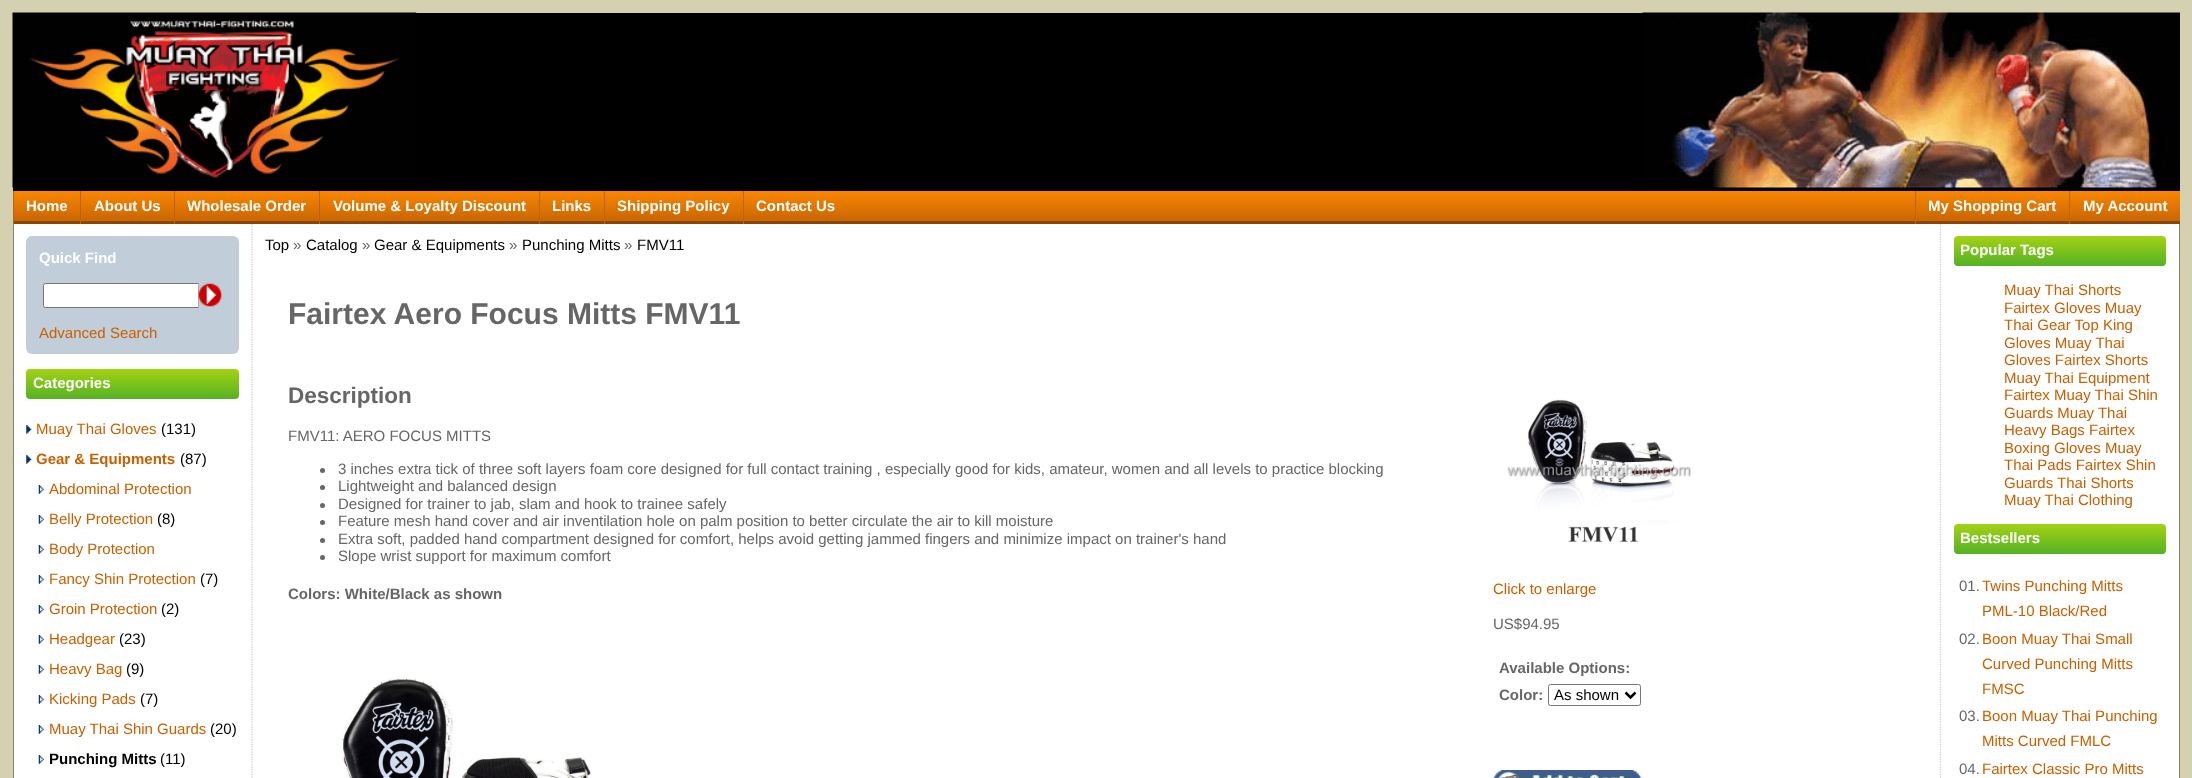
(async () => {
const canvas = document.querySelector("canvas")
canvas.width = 2192
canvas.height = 778
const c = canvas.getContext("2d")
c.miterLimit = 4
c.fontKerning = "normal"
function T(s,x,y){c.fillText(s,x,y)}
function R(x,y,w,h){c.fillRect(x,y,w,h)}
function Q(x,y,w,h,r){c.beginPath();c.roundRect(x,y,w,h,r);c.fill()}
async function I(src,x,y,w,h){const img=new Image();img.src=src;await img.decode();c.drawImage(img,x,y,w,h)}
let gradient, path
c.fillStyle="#d5d0b0"
R(0,0,2192,778)
c.fillStyle="#000"
R(13,13,2167,178)
await I("1.png",12,12,405,176)
await I("2.png",1642,12,538,176)
gradient = c.createLinearGradient(1096,191,1096,224)
gradient.addColorStop(0,"#fa8600")
gradient.addColorStop(1,"#c46303")
c.fillStyle = gradient
R(14,191,2166,30)
gradient = c.createLinearGradient(1096,191,1096,224)
gradient.addColorStop(0,"#af5e00")
gradient.addColorStop(1,"#894502")
c.fillStyle = gradient
R(13,221,2167,3)
c.fillStyle="#bd620e"
R(13,191,1,33)
c.font="bold 15px Liberation Sans"
c.fillStyle="#fff"
T("Home",26,211)
c.fillStyle="#bd620e"
R(80,191,1,33)
c.fillStyle="#fff"
T("About Us",94,211)
c.fillStyle="#bd620e"
R(174,191,1,33)
c.fillStyle="#fff"
T("Wholesale Order",187,211)
c.fillStyle="#bd620e"
R(319,191,1,33)
c.fillStyle="#fff"
T("Volume & Loyalty Discount",333,211)
c.fillStyle="#bd620e"
R(539,191,1,33)
c.fillStyle="#fff"
T("Links",552,211)
c.fillStyle="#bd620e"
R(604,191,1,33)
c.fillStyle="#fff"
T("Shipping Policy",617,211)
c.fillStyle="#bd620e"
R(743,191,1,33)
c.fillStyle="#fff"
T("Contact Us",756,211)
c.fillStyle="#bd620e"
R(1915,191,1,33)
c.fillStyle="#fff"
T("My Shopping Cart",1928,211)
c.fillStyle="#bd620e"
R(2069,191,1,33)
c.fillStyle="#fff"
T("My Account",2083,211)
R(14,224,2165,554)
c.fillStyle="#808080"
R(2179,224,1,554)
R(13,224,1,554)
c.fillStyle="#c1ceda"
Q(26,236,213,118,6)
c.fillStyle="#fff"
T("Quick Find",39,263)
c.beginPath()
c.roundRect(43.5,283.5,179,24,2)
c.fill()
c.strokeStyle="#767676"
c.stroke()
c.fillStyle="#c1ceda"
R(199,283,24,25)
c.fillStyle="#a9a9a9"
R(198,283,1,25)
await I("3.png",198,283,24,24)
c.font="15px Liberation Sans"
c.fillStyle="#c86000"
T("Advanced Search",39,338)
gradient = c.createLinearGradient(133,369,133,399)
gradient.addColorStop(0,"#a4d214")
gradient.addColorStop(1,"#54b224")
c.fillStyle = gradient
Q(26,369,213,30,4)
c.font="bold 15px Liberation Sans"
c.fillStyle="#fff"
T("Categories",33,388)
await I("4.png",26,425,6,9)
c.font="15px Liberation Sans"
c.fillStyle="#c86000"
T("Muay Thai Gloves",36,434)
c.fillStyle="#000"
T("(131)",161,434)
await I("4.png",26,455,6,9)
c.font="bold 15px Liberation Sans"
c.fillStyle="#c86000"
T("Gear & Equipments",36,464)
c.font="15px Liberation Sans"
c.fillStyle="#000"
T("(87)",180,464)
await I("5.png",38,485,6,9)
c.fillStyle="#c86000"
T("Abdominal Protection",49,494)
await I("5.png",38,515,6,9)
T("Belly Protection",49,524)
c.fillStyle="#000"
T("(8)",157,524)
await I("5.png",38,545,6,9)
c.fillStyle="#c86000"
T("Body Protection",49,554)
await I("5.png",38,575,6,9)
T("Fancy Shin Protection",49,584)
c.fillStyle="#000"
T("(7)",200,584)
await I("5.png",38,605,6,9)
c.fillStyle="#c86000"
T("Groin Protection",49,614)
c.fillStyle="#000"
T("(2)",161,614)
await I("5.png",38,635,6,9)
c.fillStyle="#c86000"
T("Headgear",49,644)
c.fillStyle="#000"
T("(23)",119,644)
await I("5.png",38,665,6,9)
c.fillStyle="#c86000"
T("Heavy Bag",49,674)
c.fillStyle="#000"
T("(9)",126,674)
await I("5.png",38,695,6,9)
c.fillStyle="#c86000"
T("Kicking Pads",49,704)
c.fillStyle="#000"
T("(7)",140,704)
await I("5.png",38,725,6,9)
c.fillStyle="#c86000"
T("Muay Thai Shin Guards",49,734)
c.fillStyle="#000"
T("(20)",210,734)
await I("5.png",38,755,6,9)
c.font="bold 15px Liberation Sans"
T("Punching Mitts",49,764)
c.font="15px Liberation Sans"
T("(11)",160,764)
path = new Path2D("M1940.5 224v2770")
c.strokeStyle="#ccc"
c.lineWidth=1.2
c.setLineDash([1.25,1.25])
c.stroke(path)
path = new Path2D("M252 224v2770")
c.stroke(path)
T("Top",265,250)
c.fillStyle="#666"
T("»",293,250)
c.fillStyle="#000"
T("Catalog",306,250)
c.fillStyle="#666"
T("»",362,250)
c.fillStyle="#000"
T("Gear & Equipments",374,250)
c.fillStyle="#666"
T("»",509,250)
c.fillStyle="#000"
T("Punching Mitts",522,250)
c.fillStyle="#666"
T("»",624,250)
c.fillStyle="#000"
T("FMV11",637,250)
c.font="bold 30px Liberation Sans"
c.fillStyle="#666"
T("Fairtex Aero Focus Mitts FMV11",288,324)
c.font="bold 22.5px Liberation Sans"
T("Description",288,403)
c.font="15px Liberation Sans"
T("FMV11: AERO FOCUS MITTS",288,441)
c.beginPath()
c.arc(322.5,470.5,2.5,0,7)
c.fill()
T("3 inches extra tick of three soft layers foam core designed for full contact training , especially good for kids, amateur, women and all levels to practice blocking",338,474)
c.beginPath()
c.arc(322.5,487.5,2.5,0,7)
c.fill()
T("Lightweight and balanced design",338,491)
c.beginPath()
c.arc(322.5,505.5,2.5,0,7)
c.fill()
T("Designed for trainer to jab, slam and hook to trainee safely",338,509)
c.beginPath()
c.arc(322.5,522.5,2.5,0,7)
c.fill()
T("Feature mesh hand cover and air inventilation hole on palm position to better circulate the air to kill moisture",338,526)
c.beginPath()
c.arc(322.5,540.5,2.5,0,7)
c.fill()
T("Extra soft, padded hand compartment designed for comfort, helps avoid getting jammed fingers and minimize impact on trainer's hand",338,544)
c.beginPath()
c.arc(322.5,557.5,2.5,0,7)
c.fill()
T("Slope wrist support for maximum comfort",338,561)
c.font="bold 15px Liberation Sans"
T("Colors: White/Black as shown",288,599)
await I("6.png",342,678,249,100)
await I("7.png",1507,399,184,143)
c.font="15px Liberation Sans"
c.fillStyle="#c86000"
T("Click to enlarge",1493,594)
c.fillStyle="#666"
T("US$94.95",1493,629)
c.font="bold 15px Liberation Sans"
T("Available Options:",1499,673)
T("Color:",1499,700)
c.beginPath()
c.roundRect(1548.5,684.5,92,21,2)
c.strokeStyle="#767676"
c.lineWidth=1
c.setLineDash([])
c.stroke()
path = new Path2D("M1625.5 692.5l5 5l5-5")
c.strokeStyle="#000"
c.lineWidth=2.5
c.stroke(path)
c.font="15px Liberation Sans"
c.fillStyle="#000"
T("As shown",1554,700)
await I("8.png",1493,770,149,8)
gradient = c.createLinearGradient(2060,236,2060,266)
gradient.addColorStop(0,"#a4d214")
gradient.addColorStop(1,"#54b224")
c.fillStyle = gradient
Q(1954,236,212,30,4)
c.font="bold 15px Liberation Sans"
c.fillStyle="#fff"
T("Popular Tags",1960,255)
c.font="15px Liberation Sans"
c.fillStyle="#c86000"
T("Muay Thai Shorts",2004,295)
T("Fairtex Gloves Muay",2004,313)
T("Thai Gear Top King",2004,330)
T("Gloves Muay Thai",2004,348)
T("Gloves Fairtex Shorts",2004,365)
T("Muay Thai Equipment",2004,383)
T("Fairtex Muay Thai Shin",2004,400)
T("Guards Muay Thai",2004,418)
T("Heavy Bags Fairtex",2004,435)
T("Boxing Gloves Muay",2004,453)
T("Thai Pads Fairtex Shin",2004,470)
T("Guards Thai Shorts",2004,488)
T("Muay Thai Clothing",2004,505)
gradient = c.createLinearGradient(2060,524,2060,554)
gradient.addColorStop(0,"#a4d214")
gradient.addColorStop(1,"#54b224")
c.fillStyle = gradient
Q(1954,524,212,30,4)
c.font="bold 15px Liberation Sans"
c.fillStyle="#fff"
T("Bestsellers",1960,543)
c.font="15px Liberation Sans"
c.fillStyle="#666"
T("01.",1959,591)
c.fillStyle="#c86000"
T("Twins Punching Mitts",1982,591)
T("PML-10 Black/Red",1982,616)
c.fillStyle="#666"
T("02.",1959,644)
c.fillStyle="#c86000"
T("Boon Muay Thai Small",1982,644)
T("Curved Punching Mitts",1982,669)
T("FMSC",1982,694)
c.fillStyle="#666"
T("03.",1959,721)
c.fillStyle="#c86000"
T("Boon Muay Thai Punching",1982,721)
T("Mitts Curved FMLC",1982,746)
c.fillStyle="#666"
T("04.",1959,774)
c.fillStyle="#c86000"
T("Fairtex Classic Pro Mitts",1982,774)
})()
